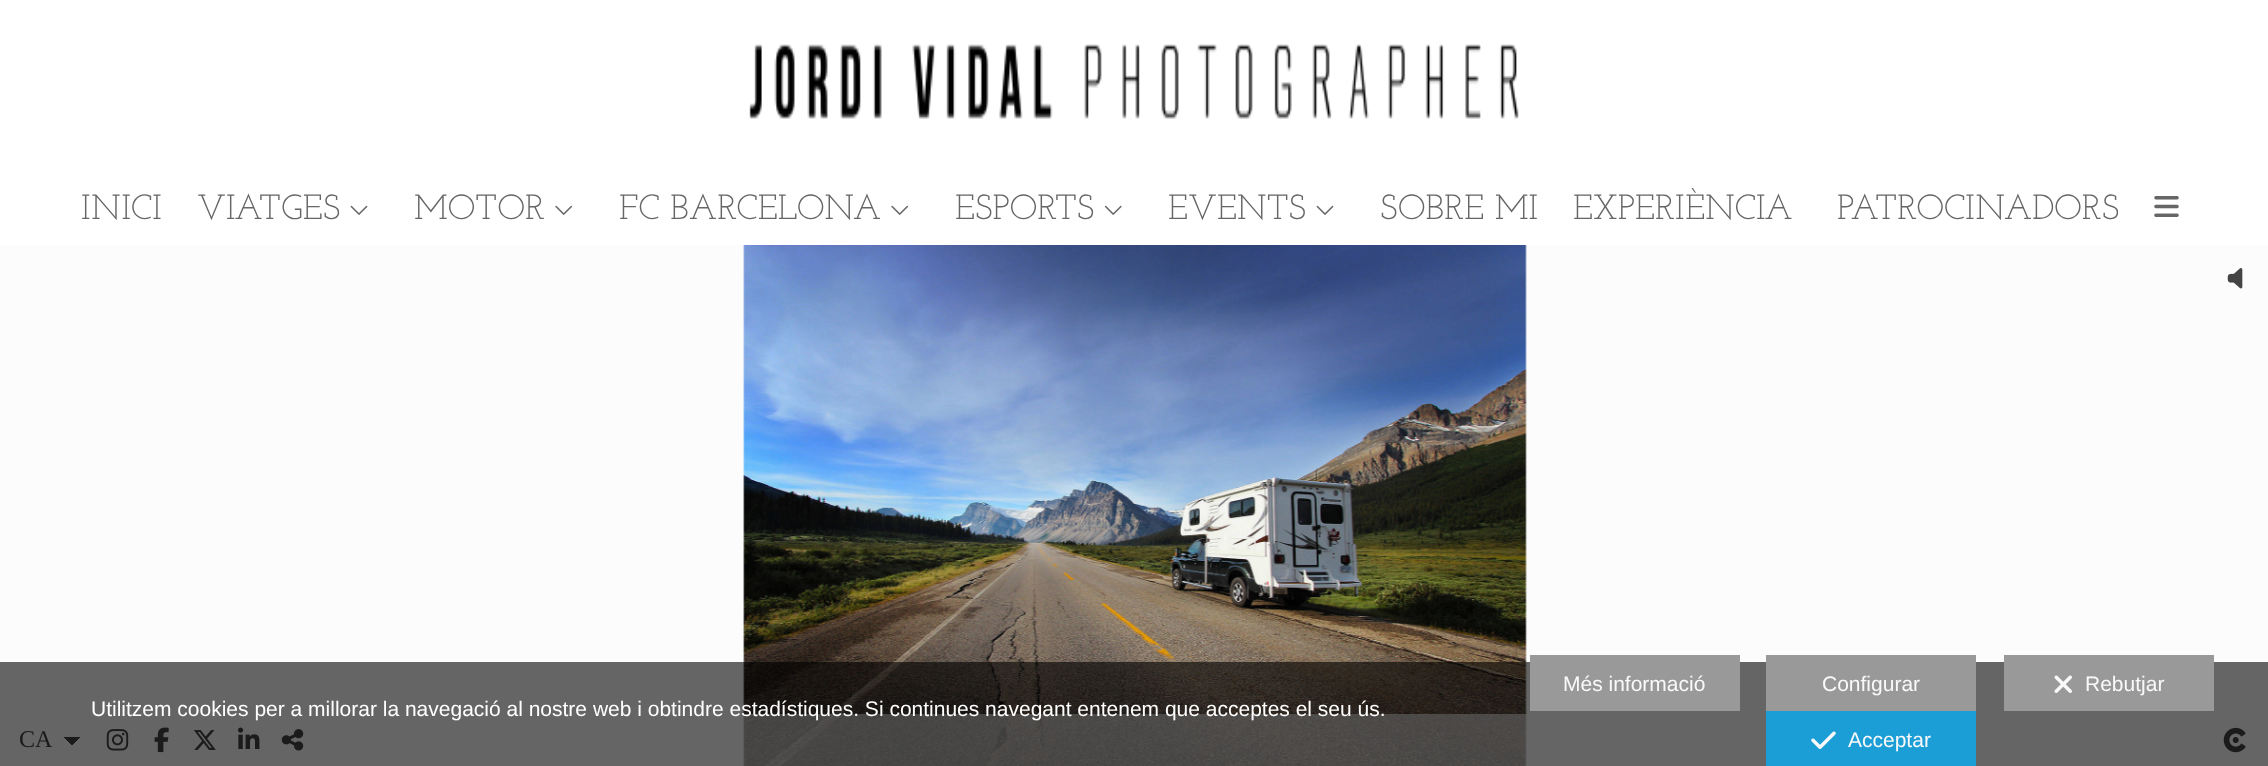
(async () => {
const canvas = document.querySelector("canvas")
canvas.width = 2268
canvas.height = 766
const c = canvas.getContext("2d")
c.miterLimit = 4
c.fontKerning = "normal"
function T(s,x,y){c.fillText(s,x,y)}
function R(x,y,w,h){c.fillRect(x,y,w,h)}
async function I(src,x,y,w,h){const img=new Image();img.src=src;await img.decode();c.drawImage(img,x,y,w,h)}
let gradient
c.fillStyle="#fff"
R(0,0,2268,766)
c.fillStyle="#fcfcfc"
R(0,245,2268,521)
await I("1.png",749,44,770,75)
c.font="100 35px Josefin Slab"
c.fillStyle="#666"
T("INICI",81,219)
T("VIATGES",197,219)
await I("2.png",350,205,18,10)
T("MOTOR",414,219)
await I("3.png",555,205,18,10)
T("FC BARCELONA",619,219)
await I("3.png",891,205,18,10)
T("ESPORTS",955,219)
await I("4.png",1104,205,18,10)
T("EVENTS",1168,219)
await I("2.png",1316,205,18,10)
T("SOBRE MI",1380,219)
T("EXPERIÈNCIA",1573,219)
T("PATROCINADORS",1837,219)
await I("5.png",2154,196,25,21)
await I("12.png",743,245,784,521)
c.fillStyle="#ffffff99"
R(743,714,784,52)
gradient = c.createLinearGradient(72,737,81,746)
gradient.addColorStop(.5,"#444")
gradient.addColorStop(.5,"#fefefe")
c.fillStyle = gradient
R(72,737,9,8)
gradient = c.createLinearGradient(63,746,72,737)
gradient.addColorStop(.5,"#fefefe")
gradient.addColorStop(.5,"#444")
c.fillStyle = gradient
R(63,737,9,8)
c.font="24px Liberation Serif"
c.fillStyle="#444"
T("CA",19,747)
await I("6.png",106,729,23,22)
await I("7.png",154,727,15,26)
await I("8.png",193,730,23,20)
await I("9.png",238,727,22,22)
await I("10.png",281,729,23,22)
await I("11.png",2223,727,23,26)
await I("13.png",2227,268,16,21)
c.fillStyle="#00000099"
R(0,662,2268,104)
c.font="21px Liberation Sans"
c.fillStyle="#fff"
T("Utilitzem cookies per a millorar la navegació al nostre web i obtindre estadístiques. Si continues navegant entenem que acceptes el seu ús.",91,716)
c.fillStyle="#999"
R(1530,655,210,56)
c.fillStyle="#f9f9f9"
T("Més informació",1563,691)
c.fillStyle="#999"
R(1766,655,210,56)
c.fillStyle="#f9f9f9"
T("Configurar",1822,691)
c.fillStyle="#999"
R(2004,655,210,56)
await I("14.png",2054,675,18,18)
c.fillStyle="#f9f9f9"
T("Rebutjar",2085,691)
c.fillStyle="#1a9ed5"
R(1766,711,210,55)
await I("15.png",1811,731,25,18)
c.fillStyle="#f9f9f9"
T("Acceptar",1848,747)
})()
